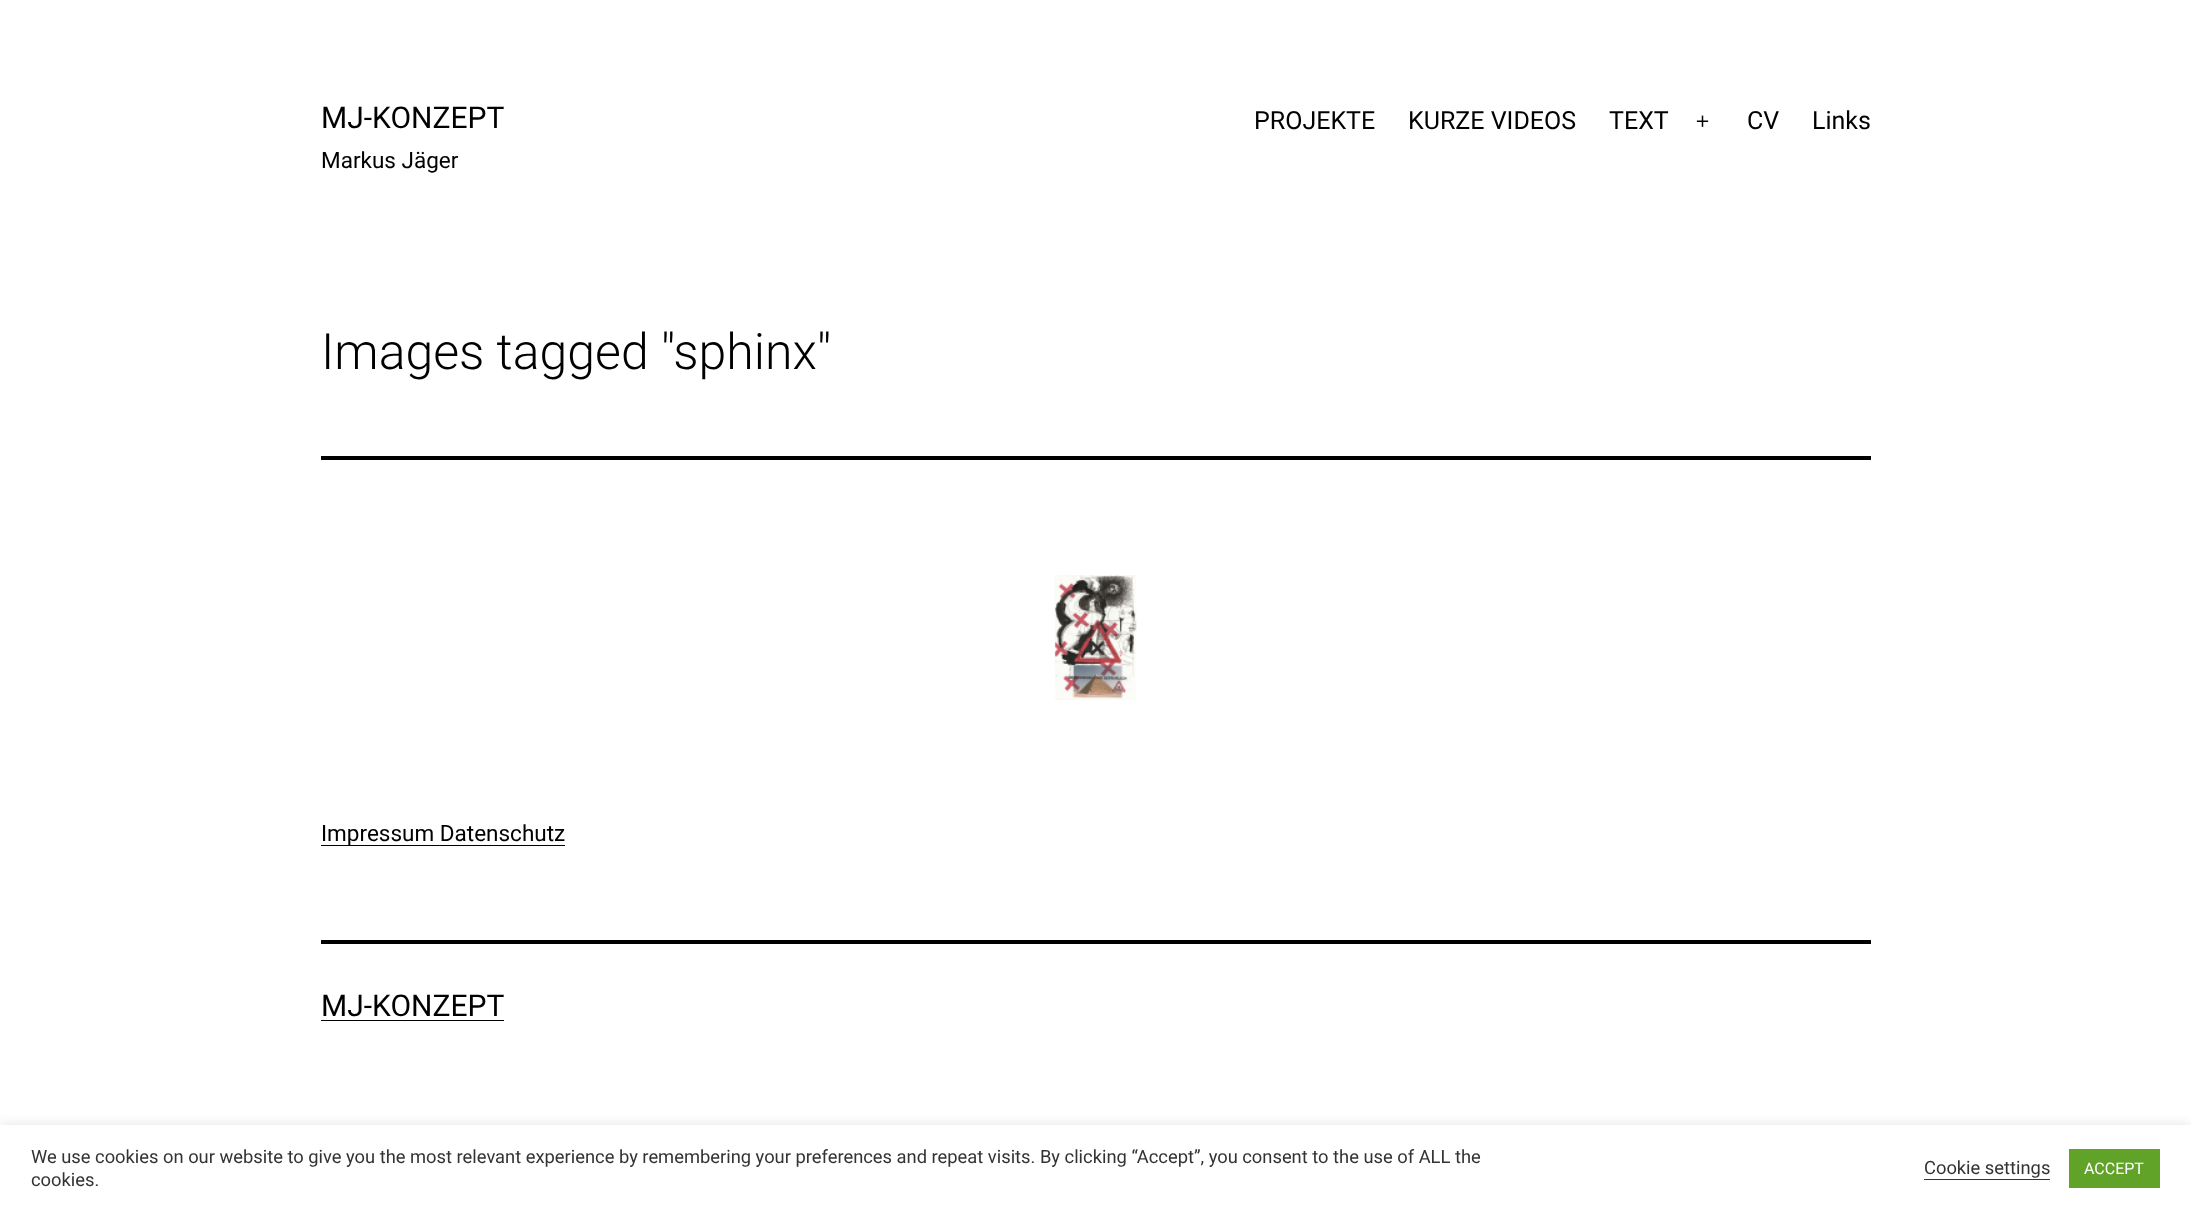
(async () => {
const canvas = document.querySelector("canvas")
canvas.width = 2191
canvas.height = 1211
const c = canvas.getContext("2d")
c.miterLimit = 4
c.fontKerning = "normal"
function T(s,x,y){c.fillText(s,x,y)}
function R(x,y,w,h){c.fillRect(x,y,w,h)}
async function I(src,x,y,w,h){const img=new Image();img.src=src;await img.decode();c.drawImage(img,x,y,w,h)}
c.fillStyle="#fff"
R(0,0,2191,1211)
c.font="30px Roboto"
c.fillStyle="#000"
T("MJ-KONZEPT",321,128)
c.font="22.5px Roboto"
T("Markus Jäger",321,168)
c.font="25px Roboto"
T("PROJEKTE",1254,129)
T("KURZE VIDEOS",1408,129)
T("TEXT",1609,129)
await I("1.png",1696,115,13,12)
T("CV",1747,129)
T("Links",1812,129)
R(321,456,1550,4)
c.font="300 50px Roboto"
T("Images tagged \"sphinx\"",321,369)
await I("2.png",1054,575,83,125)
R(321,845,244,1)
c.font="22.5px Roboto"
T("Impressum Datenschutz",321,841)
R(321,940,1550,4)
c.font="30px Roboto"
T("MJ-KONZEPT",321,1016)
R(321,1020,183,1)
c.save()
c.beginPath()
c.rect(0,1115,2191,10)
c.clip()
c.fillStyle="#acabab4d"
c.filter="blur(6px)"
c.beginPath()
c.rect(0,1124,2191,86)
c.fill()
c.filter="none"
c.restore()
c.font="18.33px Roboto"
c.fillStyle="#333"
T("We use cookies on our website to give you the most relevant experience by remembering your preferences and repeat visits. By clicking “Accept”, you consent to the use of ALL the",31,1163)
T("cookies.",31,1186)
T("Cookie settings",1924,1174)
R(1924,1179,126,1)
c.fillStyle="#61a229"
R(2069,1149,91,39)
c.font="16px Roboto"
c.fillStyle="#fff"
T("ACCEPT",2084,1174)
})()
